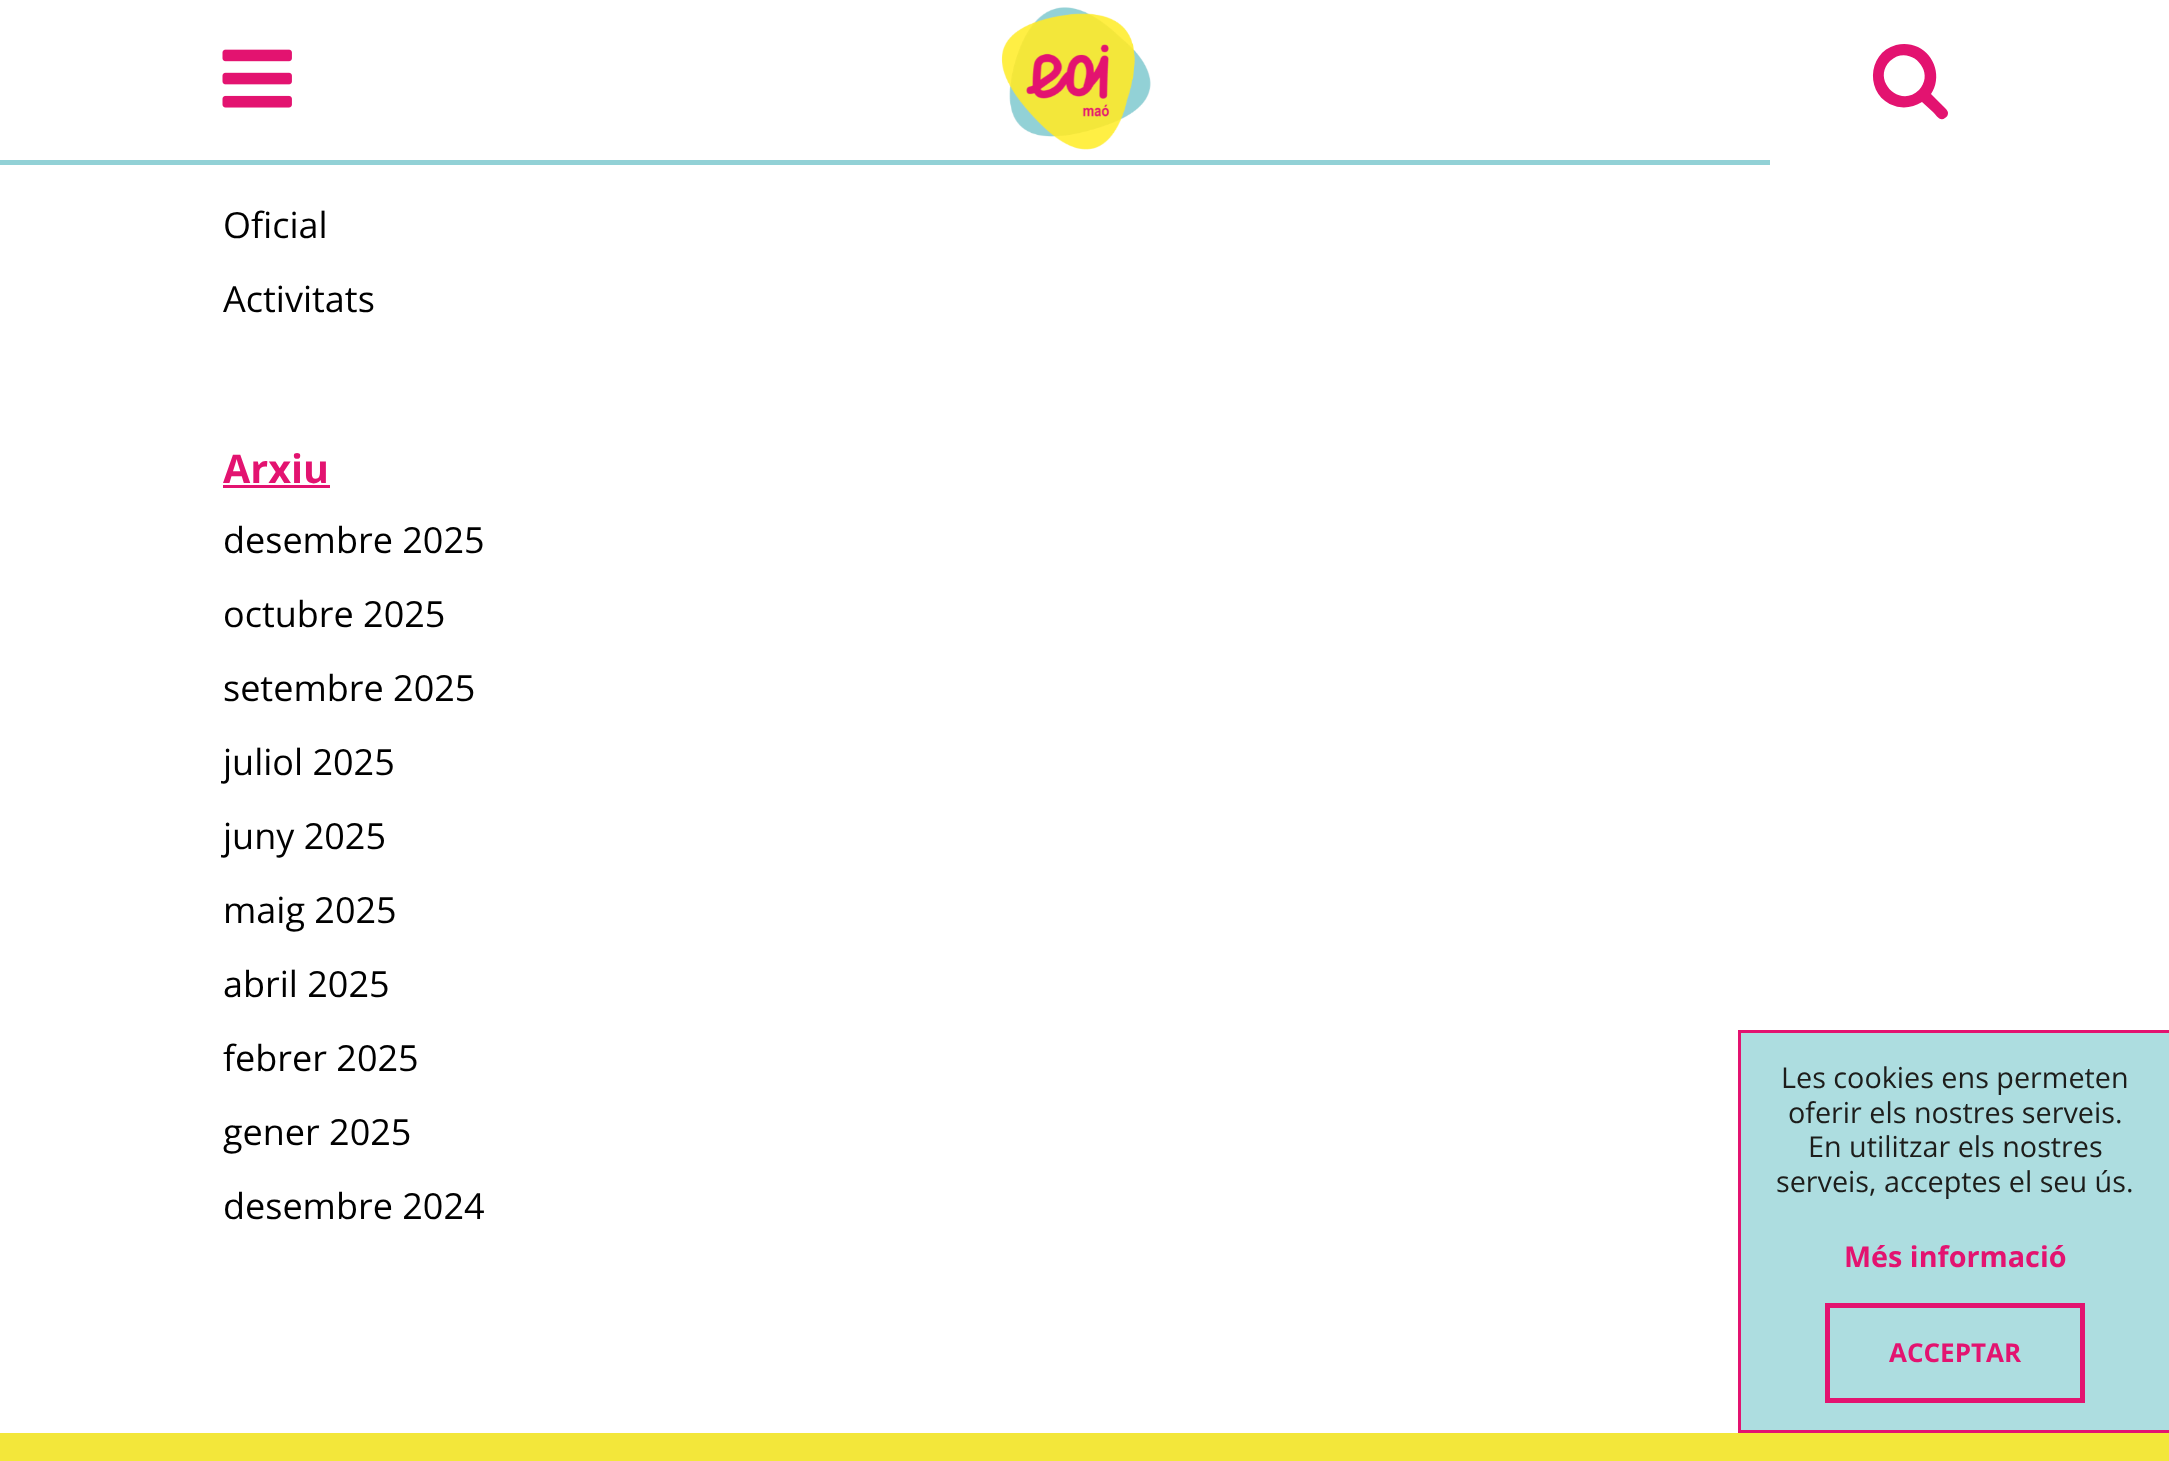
(async () => {
const canvas = document.querySelector("canvas")
canvas.width = 2169
canvas.height = 1461
const c = canvas.getContext("2d")
c.miterLimit = 4
c.fontKerning = "normal"
function T(s,x,y){c.fillText(s,x,y)}
function R(x,y,w,h){c.fillRect(x,y,w,h)}
async function I(src,x,y,w,h){const img=new Image();img.src=src;await img.decode();c.drawImage(img,x,y,w,h)}
let path
c.fillStyle="#fff"
R(0,0,2169,1461)
await I("1.png",222,49,70,59)
await I("2.png",1001,7,150,143)
c.fillStyle="#e31370"
path = new Path2D("M1919 90c18-19-10-47-29-29c-19 19 10 48 29 29zm29 23c0 2-1 4-3 5c-5 4-9-3-12-6l-11-10c-8 5-18 7-27 4c-30-9-29-53 1-61c8-2 15-1 22 2c17 8 24 31 13 47l15 15c1 1 2 3 2 4z")
c.fill(path)
c.fillStyle="#92d1d6"
R(0,160,1770,5)
c.font="36px Open Sans"
c.fillStyle="#000"
T("Oficial",223,238)
T("Activitats",223,312)
c.font="bold 39.5px Open Sans"
c.fillStyle="#e31370"
T("Arxiu",223,483)
R(223,485,107,3)
c.font="36px Open Sans"
c.fillStyle="#000"
T("desembre 2025",223,553)
T("octubre 2025",223,627)
T("setembre 2025",223,701)
T("juliol 2025",223,775)
T("juny 2025",223,849)
T("maig 2025",223,923)
T("abril 2025",223,997)
T("febrer 2025",223,1071)
T("gener 2025",223,1145)
T("desembre 2024",223,1219)
c.fillStyle="#addde0"
R(1741,1033,428,397)
c.fillStyle="#e31370"
R(1738,1030,431,3)
R(1738,1430,431,3)
R(1738,1030,3,403)
c.font="28.75px Open Sans"
c.fillStyle="#1d1d1b"
T("Les cookies ens permeten",1781,1088)
T("oferir els nostres serveis.",1788,1123)
T("En utilitzar els nostres",1808,1157)
T("serveis, acceptes el seu ús.",1776,1192)
c.font="bold 28.75px Open Sans"
c.fillStyle="#e31370"
T("Més informació",1844,1267)
c.strokeStyle="#e31370"
c.lineWidth=5
c.strokeRect(1827.5,1305.5,255,95)
c.font="bold 26px Open Sans"
T("ACCEPTAR",1889,1362)
c.fillStyle="#f3e73a"
R(0,1433,2169,28)
})()
